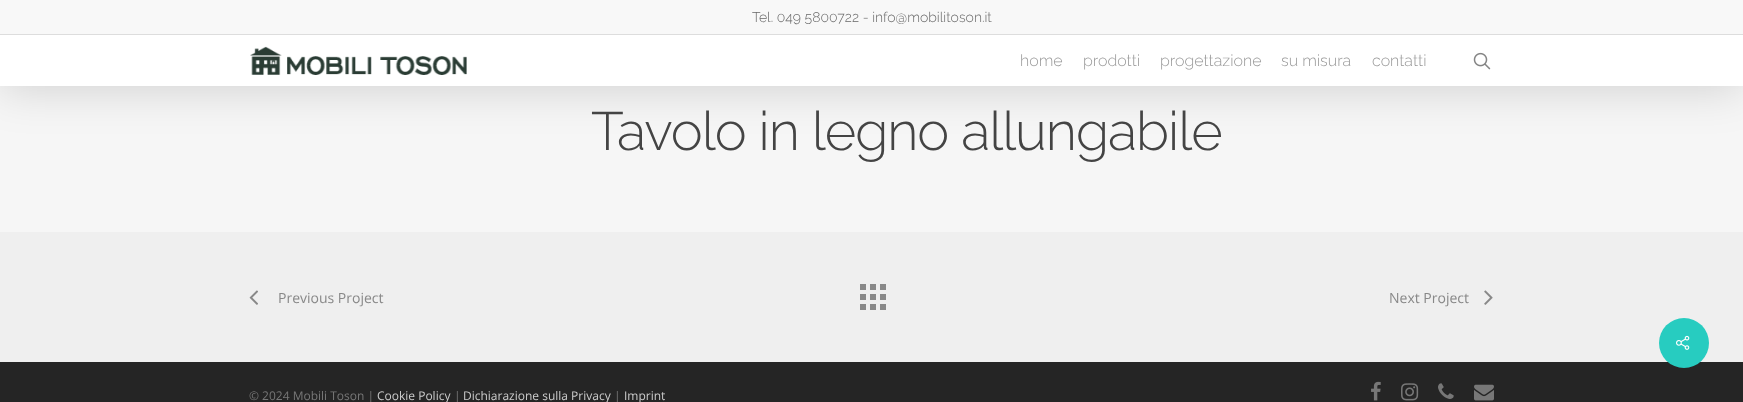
(async () => {
const canvas = document.querySelector("canvas")
canvas.width = 1743
canvas.height = 402
const c = canvas.getContext("2d")
c.miterLimit = 4
c.fontKerning = "normal"
function T(s,x,y){c.fillText(s,x,y)}
function R(x,y,w,h){c.fillRect(x,y,w,h)}
async function I(src,x,y,w,h){const img=new Image();img.src=src;await img.decode();c.drawImage(img,x,y,w,h)}
c.fillStyle="#f6f6f6"
R(0,0,1743,402)
c.fillStyle="#00000026"
c.filter="blur(22.5px)"
c.beginPath()
c.rect(0,3,1743,86)
c.fill()
c.filter="none"
c.fillStyle="#fff"
R(0,35,1743,51)
c.fillStyle="#f8f8f8"
R(0,0,1743,34)
c.fillStyle="#ddd"
R(0,34,1743,1)
c.font="300 14px Raleway"
c.fillStyle="#676767"
T("Tel. 049 5800722 - info@mobilitoson.it",752,22)
await I("1.png",250,46,217,29)
c.font="300 16px Raleway"
c.fillStyle="#999"
T("home",1020,66)
T("prodotti",1083,66)
T("progettazione",1160,66)
T("su misura",1281,66)
T("contatti",1372,66)
await I("2.png",1473,52,18,18)
c.letterSpacing="-1px"
c.font="300 54px Raleway"
c.fillStyle="#444"
T("Tavolo in legno allungabile",591,150)
c.fillStyle="#efefef"
R(0,232,1743,130)
c.fillStyle="#888"
R(880,304,6,6)
R(870,304,6,6)
R(860,284,6,6)
R(870,284,6,6)
R(880,284,6,6)
R(880,294,6,6)
R(860,304,6,6)
R(860,294,6,6)
R(870,294,6,6)
await I("3.png",249,290,9,15)
c.letterSpacing="0px"
c.font="14px Open Sans"
T("Previous Project",278,303)
T("Next Project",1389,303)
await I("4.png",1484,290,9,15)
c.fillStyle="#252525"
R(0,362,1743,40)
c.fillStyle="#27ccc0"
c.beginPath()
c.arc(1684,343,25,0,7)
c.fill()
await I("5.png",1676,335,14,15)
c.font="12px Open Sans"
c.fillStyle="#777"
T("© 2024 Mobili Toson |",249,400)
c.fillStyle="#ccc"
T("Cookie Policy",377,400)
c.fillStyle="#777"
T("|",454,400)
c.fillStyle="#ccc"
T("Dichiarazione sulla Privacy",463,400)
c.fillStyle="#777"
T("|",614,400)
c.fillStyle="#ccc"
T("Imprint",624,400)
await I("6.png",1371,381,10,20)
await I("7.png",1401,383,18,18)
await I("8.png",1438,383,16,16)
await I("9.png",1474,384,20,17)
})()
